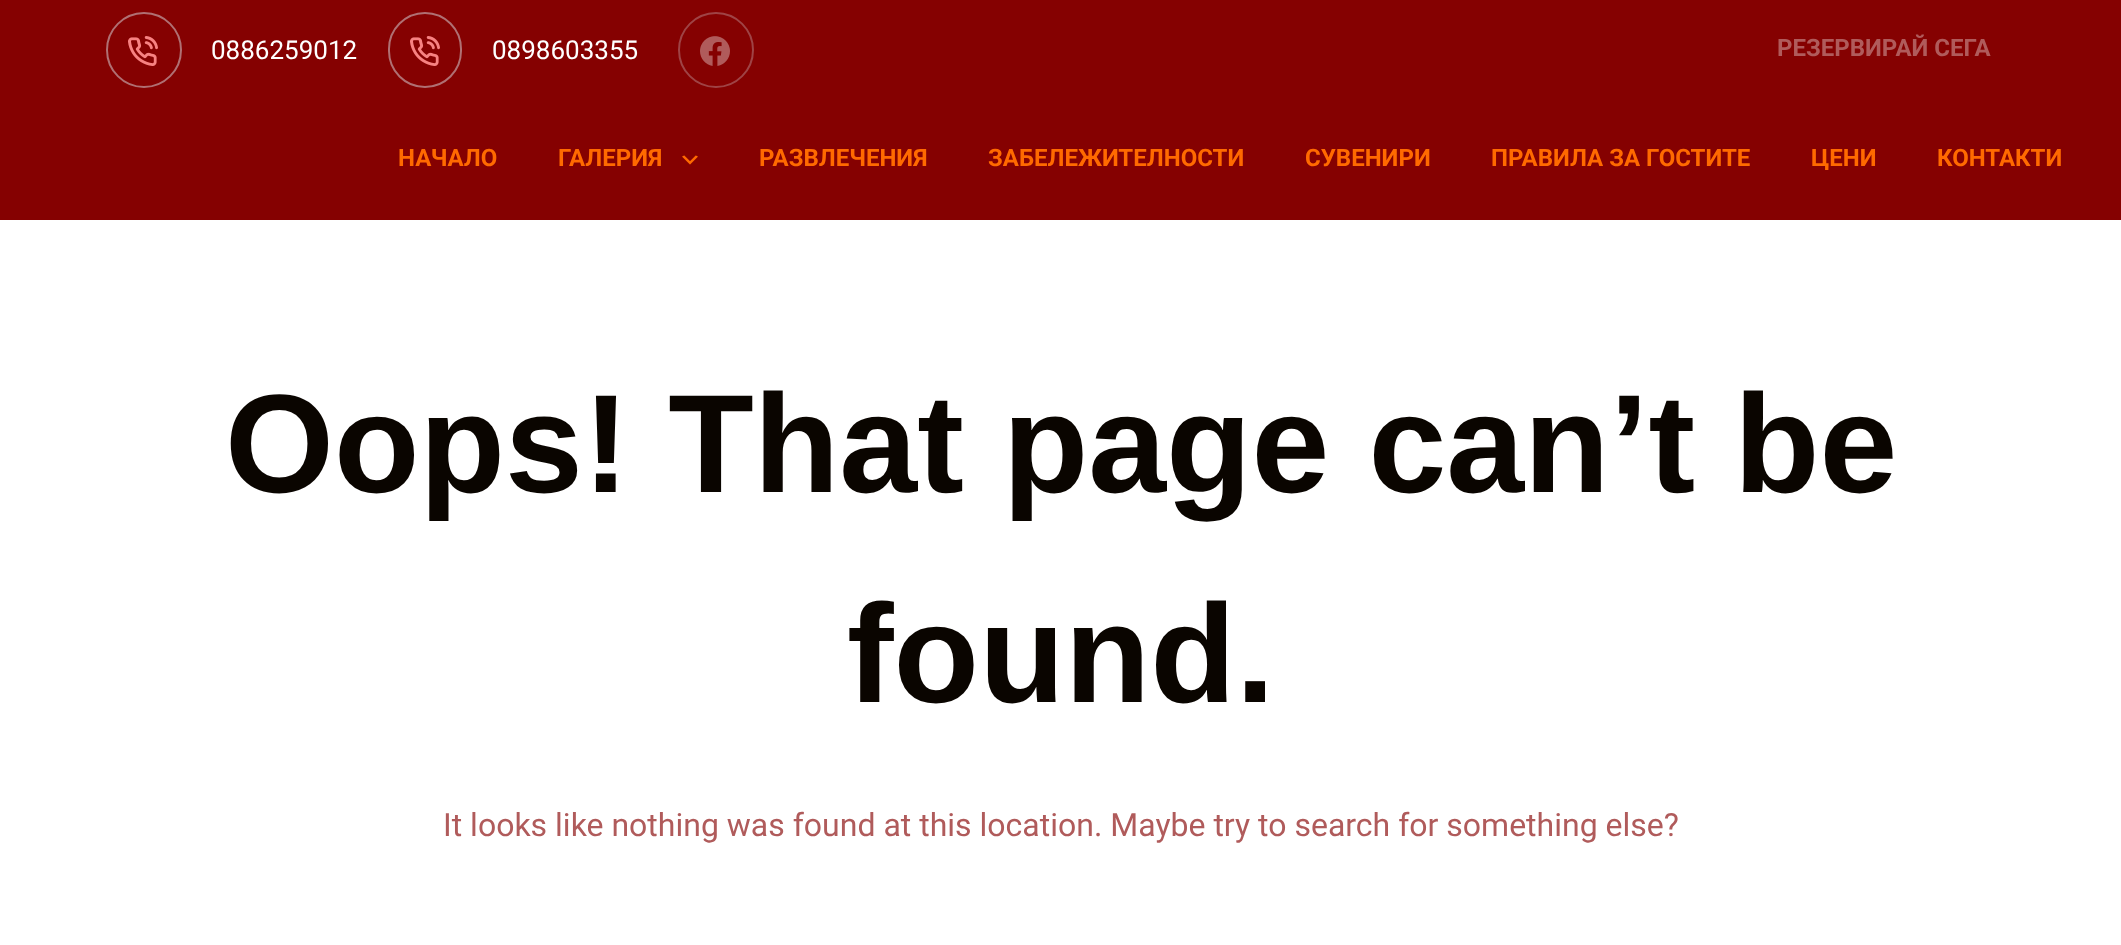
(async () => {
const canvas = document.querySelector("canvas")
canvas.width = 2121
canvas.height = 945
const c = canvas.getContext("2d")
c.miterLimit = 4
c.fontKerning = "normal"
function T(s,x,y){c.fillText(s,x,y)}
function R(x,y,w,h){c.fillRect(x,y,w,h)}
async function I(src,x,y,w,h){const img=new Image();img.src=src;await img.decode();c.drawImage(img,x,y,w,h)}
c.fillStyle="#fff"
R(0,0,2121,945)
c.fillStyle="#850101"
R(0,0,2121,220)
c.beginPath()
c.arc(144,50,37,0,7)
c.strokeStyle="#b07073"
c.lineWidth=2
c.stroke()
await I("1.png",128,36,30,30)
c.font="26px Roboto"
c.fillStyle="#fff"
T("0886259012",211,59)
c.beginPath()
c.roundRect(389,13,72,74,36)
c.stroke()
await I("1.png",410,36,30,30)
T("0898603355",492,59)
c.beginPath()
c.arc(716,50,37,0,7)
c.strokeStyle="#9f4345"
c.stroke()
await I("2.png",700,36,30,30)
c.font="bold 24px Roboto"
c.fillStyle="#b05b5b"
T("РЕЗЕРВИРАЙ СЕГА",1777,56)
c.fillStyle="#ff6a00"
T("НАЧАЛО",398,166)
T("ГАЛЕРИЯ",558,166)
await I("3.png",682,155,16,10)
T("РАЗВЛЕЧЕНИЯ",759,166)
T("ЗАБЕЛЕЖИТЕЛНОСТИ",988,166)
T("СУВЕНИРИ",1305,166)
T("ПРАВИЛА ЗА ГОСТИТЕ",1491,166)
T("ЦЕНИ",1811,166)
T("КОНТАКТИ",1937,166)
c.font="bold 140px Liberation Sans"
c.fillStyle="#0a0500"
T("Oops! That page can’t be",225,492)
T("found.",847,702)
c.font="32px Roboto"
c.fillStyle="#b05b5b"
T("It looks like nothing was found at this location. Maybe try to search for something else?",443,836)
})()
